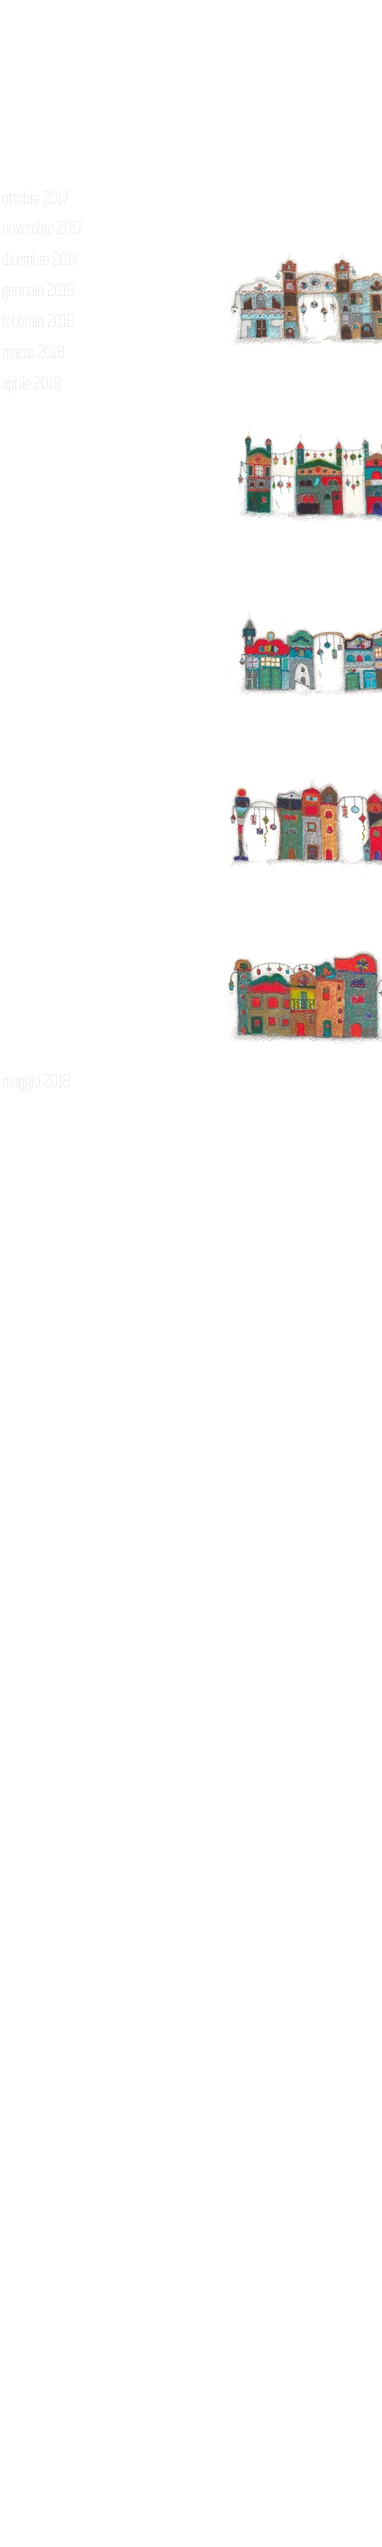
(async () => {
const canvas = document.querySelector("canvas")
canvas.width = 382
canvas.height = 2547
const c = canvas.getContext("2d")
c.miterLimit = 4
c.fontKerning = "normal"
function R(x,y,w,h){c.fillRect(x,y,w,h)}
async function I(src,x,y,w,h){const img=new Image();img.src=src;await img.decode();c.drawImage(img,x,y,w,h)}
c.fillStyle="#fff"
R(0,0,382,2547)
await I("1.png",2,191,67,14)
await I("2.png",2,221,81,14)
await I("3.png",2,252,76,14)
await I("4.png",226,250,156,96)
await I("5.png",236,430,146,92)
await I("6.png",223,610,159,87)
await I("7.png",229,776,153,98)
await I("8.png",226,950,156,96)
await I("9.png",2,283,72,17)
await I("10.png",2,314,72,14)
await I("11.png",2,345,62,14)
await I("12.png",2,376,59,17)
await I("13.png",2,1074,68,17)
})()
